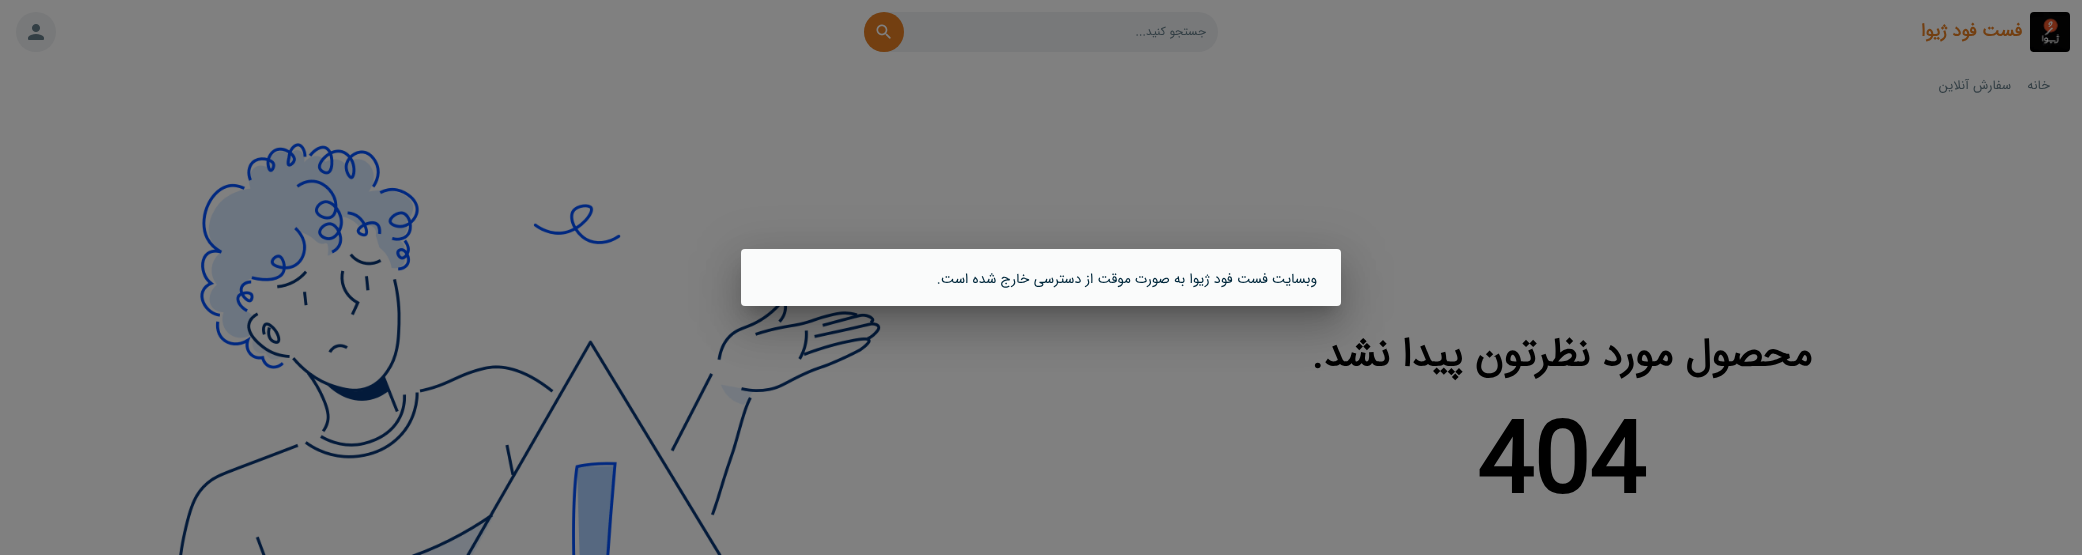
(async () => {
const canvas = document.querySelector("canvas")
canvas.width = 2082
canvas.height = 555
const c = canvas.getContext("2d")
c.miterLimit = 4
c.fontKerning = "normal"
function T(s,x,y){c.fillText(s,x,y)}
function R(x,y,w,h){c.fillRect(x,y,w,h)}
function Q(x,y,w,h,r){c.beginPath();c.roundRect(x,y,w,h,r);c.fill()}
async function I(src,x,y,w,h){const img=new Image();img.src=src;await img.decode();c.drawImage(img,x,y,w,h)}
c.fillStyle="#808080"
R(0,0,2082,555)
await I("1.png",2030,12,40,40)
c.direction="rtl"
c.font="bold 18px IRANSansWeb"
c.fillStyle="#733f11"
T("فست فود ژیوا",2022,36)
c.fillStyle="#78797a"
Q(864,12,354,40,20)
c.font="12px IRANSansWeb"
c.fillStyle="#333f45"
T("جستجو کنید...",1206,35)
c.fillStyle="#733f11"
c.beginPath()
c.arc(884,32,20,0,7)
c.fill()
await I("2.png",876,24,15,15)
c.fillStyle="#78797a"
c.beginPath()
c.arc(36,32,20,0,7)
c.fill()
await I("3.png",28,24,16,16)
c.font="13px IRANSansWeb"
c.fillStyle="#333f45"
T("خانه",2050,89)
T("سفارش آنلاین",2011,89)
c.font="bold 40px IRANSansWeb"
c.fillStyle="#000"
T("محصول",1812,366)
T("مورد نظرتون پیدا نشد.",1673,366)
c.direction="ltr"
c.font="bold 100px IRANSansWeb"
T("404",1477,493)
await I("4.png",179,143,702,412)
c.fillStyle="#0000001f"
c.filter="blur(23px)"
c.beginPath()
c.roundRect(733,250,616,73,12)
c.fill()
c.filter="none"
c.fillStyle="#00000024"
c.filter="blur(19px)"
c.beginPath()
c.roundRect(738,270,606,63,7)
c.fill()
c.filter="none"
c.fillStyle="#00000033"
c.filter="blur(7.5px)"
c.beginPath()
c.rect(748,267,586,43)
c.fill()
c.filter="none"
c.fillStyle="#fafbfb"
Q(741,249,600,57,4)
c.direction="rtl"
c.font="14px IRANSansWeb"
c.fillStyle="#00283c"
T("وبسایت",1317,283)
T("فست فود ژیوا",1268,283)
T("به صورت موقت از دسترسی خارج شده‌ است.",1185,283)
})()
